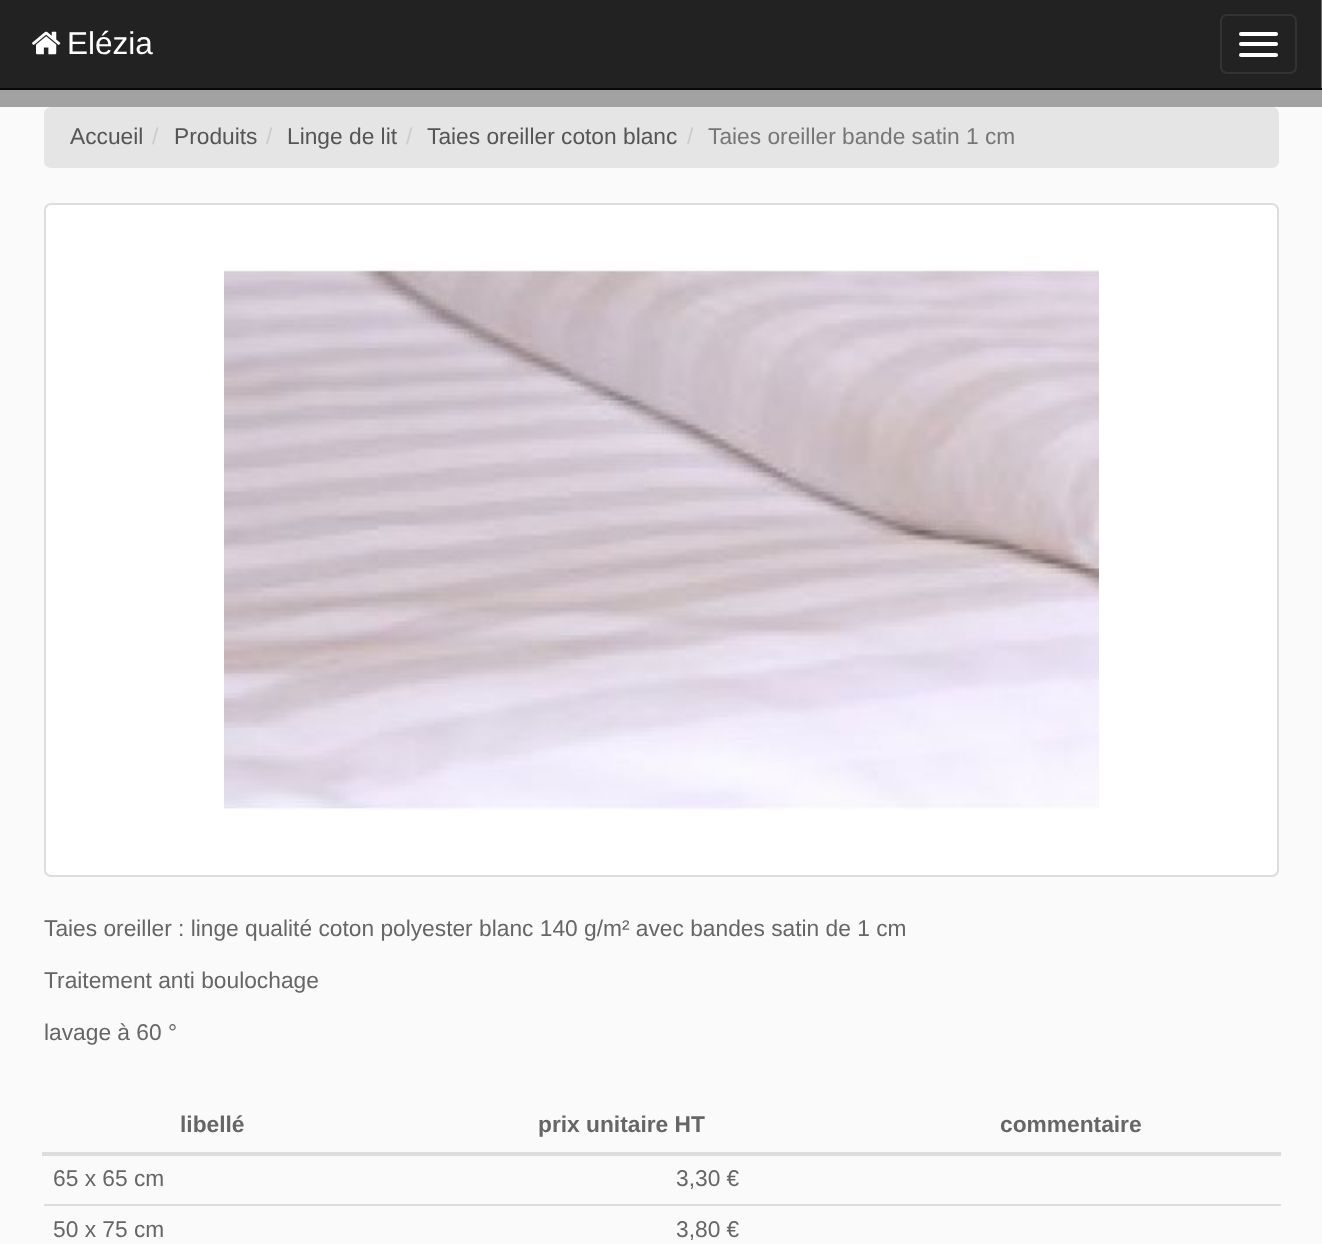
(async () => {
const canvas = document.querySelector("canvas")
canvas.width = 1322
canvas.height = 1244
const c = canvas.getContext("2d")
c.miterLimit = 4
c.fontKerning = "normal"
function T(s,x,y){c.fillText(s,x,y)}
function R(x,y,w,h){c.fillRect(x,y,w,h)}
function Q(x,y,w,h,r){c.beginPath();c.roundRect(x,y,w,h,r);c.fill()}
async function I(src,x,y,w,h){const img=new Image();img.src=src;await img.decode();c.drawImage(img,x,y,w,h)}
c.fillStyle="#fafafa"
R(0,0,1322,1244)
c.fillStyle="#222"
R(0,0,1321,88)
c.fillStyle="#6f6f6f"
R(1321,0,1,88)
c.fillStyle="#080808"
R(0,88,1322,2)
await I("1.png",32,31,29,24)
c.font="31.5px Liberation Sans"
c.fillStyle="#fff"
T("Elézia",67,54)
c.beginPath()
c.roundRect(1221,15,75,58,6)
c.strokeStyle="#333"
c.lineWidth=2
c.stroke()
Q(1239,32,39,4,2)
Q(1239,42,39,4,2)
Q(1239,53,39,4,2)
c.fillStyle="#a2a2a2"
R(0,90,1322,17)
c.fillStyle="#e5e5e5"
Q(44,107,1235,61,7)
c.font="22.75px Liberation Sans"
c.fillStyle="#555"
T("Accueil",70,144)
c.fillStyle="#ccc"
T("/",152,144)
c.fillStyle="#555"
T("Produits",174,144)
c.fillStyle="#ccc"
T("/",266,144)
c.fillStyle="#555"
T("Linge de lit",287,144)
c.fillStyle="#ccc"
T("/",406,144)
c.fillStyle="#555"
T("Taies oreiller coton blanc",427,144)
c.fillStyle="#ccc"
T("/",687,144)
c.fillStyle="#777"
T("Taies oreiller bande satin 1 cm",708,144)
c.fillStyle="#fff"
c.beginPath()
c.roundRect(45,204,1233,672,6)
c.fill()
c.strokeStyle="#ddd"
c.stroke()
await I("2.png",224,268,875,542)
c.fillStyle="#666"
T("Taies oreiller : linge qualité coton polyester blanc 140 g/m² avec bandes satin de 1 cm",44,936)
T("Traitement anti boulochage",44,988)
T("lavage à 60 °",44,1040)
c.font="bold 22.75px Liberation Sans"
T("libellé",180,1132)
T("prix unitaire HT",538,1132)
c.fillStyle="#ddd"
R(42,1152,1239,4)
c.fillStyle="#666"
T("commentaire",1000,1132)
c.font="22.75px Liberation Sans"
T("65 x 65 cm",53,1186)
T("3,30 €",676,1186)
c.fillStyle="#ddd"
R(44,1204,1237,2)
c.fillStyle="#666"
T("50 x 75 cm",53,1237)
T("3,80 €",676,1237)
})()
